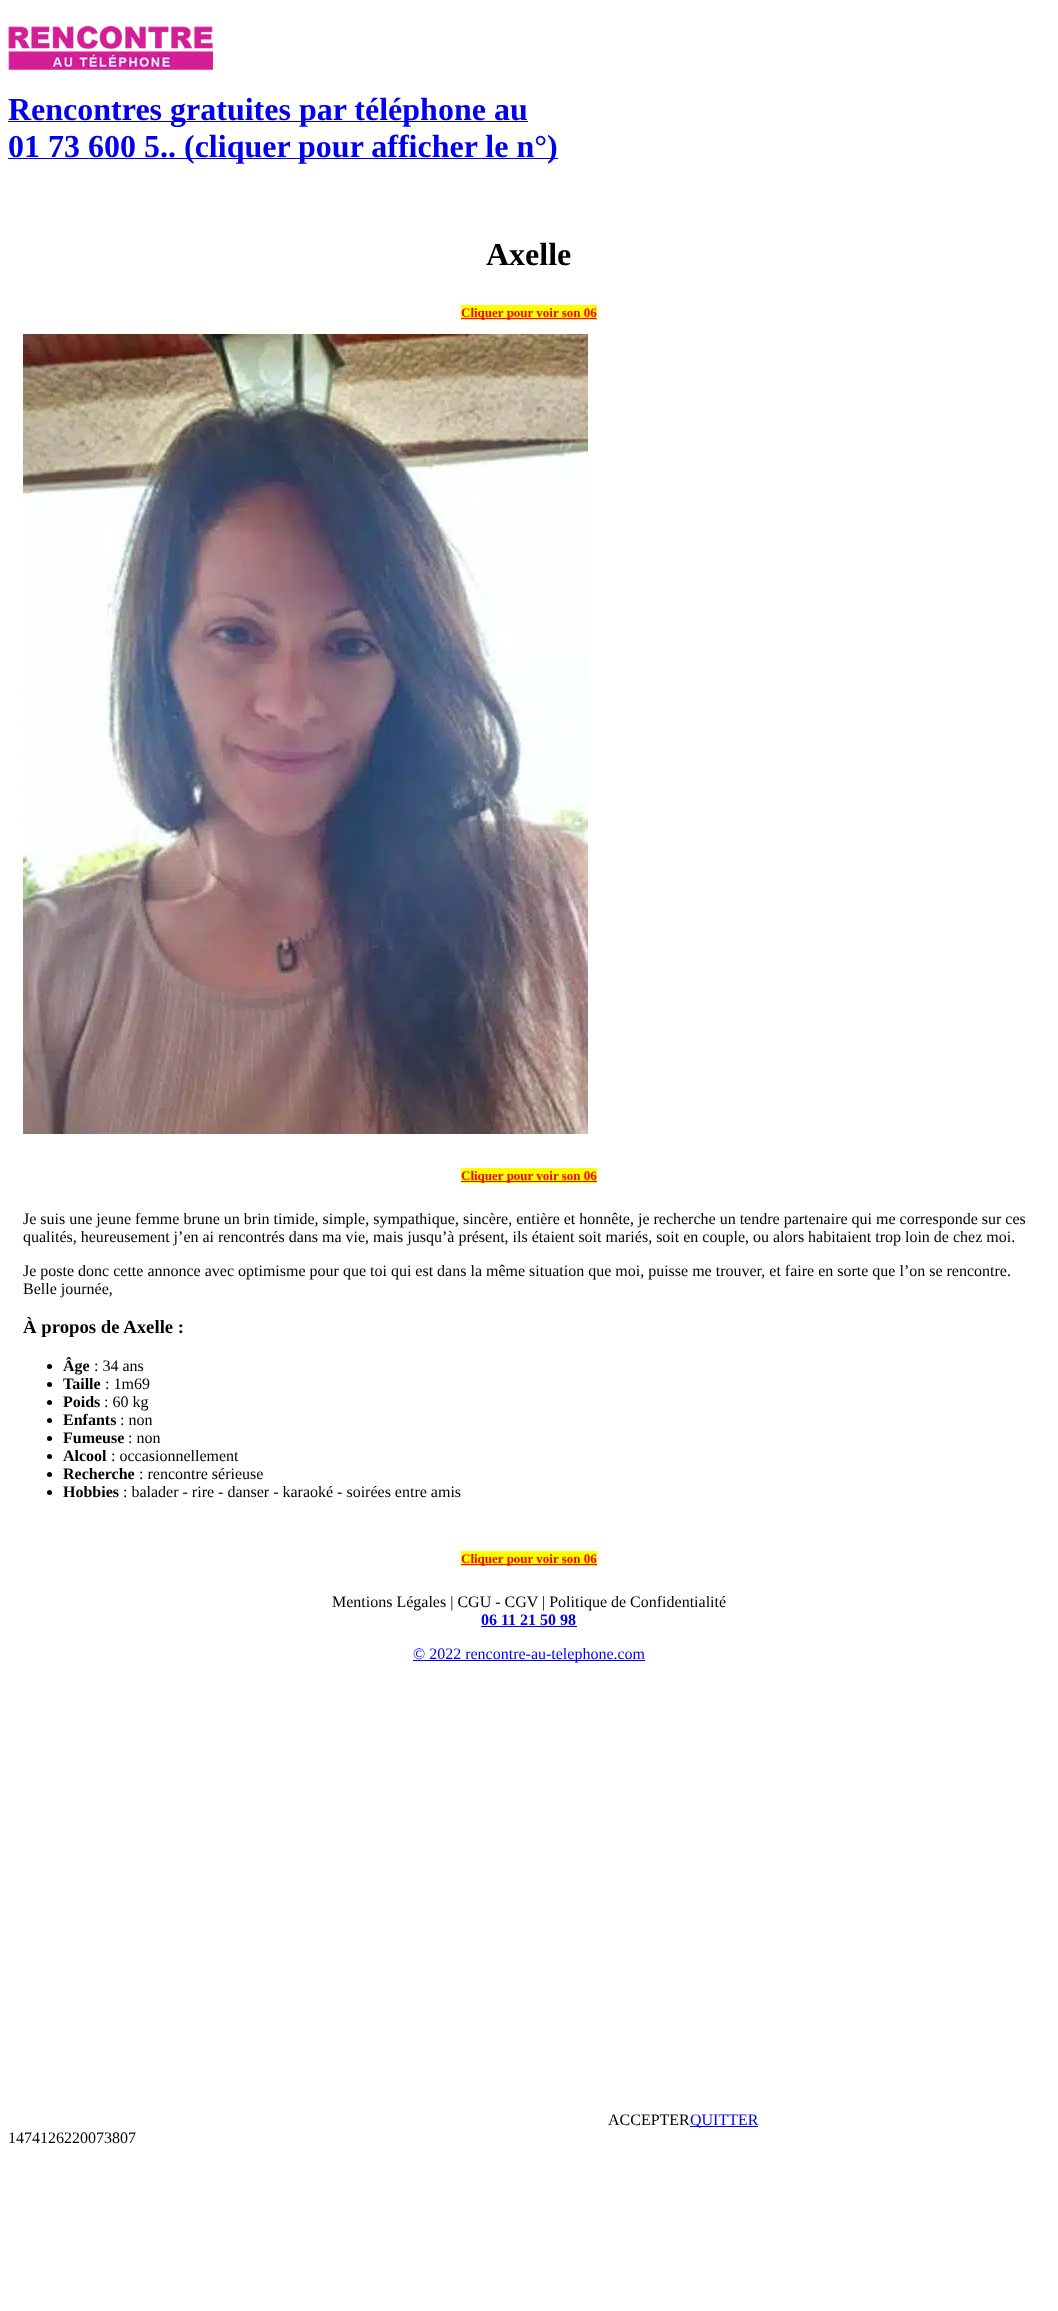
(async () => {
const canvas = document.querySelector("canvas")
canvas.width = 1058
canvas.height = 2311
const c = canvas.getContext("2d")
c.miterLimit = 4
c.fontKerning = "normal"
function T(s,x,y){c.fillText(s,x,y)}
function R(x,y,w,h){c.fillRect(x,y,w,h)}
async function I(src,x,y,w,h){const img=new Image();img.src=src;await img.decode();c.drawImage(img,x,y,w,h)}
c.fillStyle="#fff"
R(0,0,1058,2311)
await I("1.png",8,26,205,44)
c.fillStyle="#00e"
R(8,121,520,1)
c.font="bold 32px Liberation Serif"
T("Rencontres gratuites par téléphone au",8,120)
R(8,158,550,1)
T("01 73 600 5.. (cliquer pour afficher le n°)",8,157)
c.fillStyle="#000"
T("Axelle",486,265)
c.fillStyle="#ff0"
R(461,305,136,15)
c.fillStyle="#f00"
R(461,318,136,1)
c.font="bold 13px Liberation Serif"
T("Cliquer pour voir son 06",461,317)
await I("2.png",23,334,565,800)
c.fillStyle="#ff0"
R(461,1168,136,15)
c.fillStyle="#f00"
R(461,1181,136,1)
T("Cliquer pour voir son 06",461,1180)
c.font="16px Liberation Serif"
c.fillStyle="#000"
T("Je suis une jeune femme brune un brin timide, simple, sympathique, sincère, entière et honnête, je recherche un tendre partenaire qui me corresponde sur ces",23,1224)
T("qualités, heureusement j’en ai rencontrés dans ma vie, mais jusqu’à présent, ils étaient soit mariés, soit en couple, ou alors habitaient trop loin de chez moi.",23,1242)
T("Je poste donc cette annonce avec optimisme pour que toi qui est dans la même situation que moi, puisse me trouver, et faire en sorte que l’on se rencontre.",23,1276)
T("Belle journée,",23,1294)
c.font="bold 18.75px Liberation Serif"
T("À propos de Axelle :",23,1333)
c.beginPath()
c.arc(49.5,1366.5,2.5,0,7)
c.fill()
c.font="bold 16px Liberation Serif"
T("Âge",63,1371)
c.font="16px Liberation Serif"
T(": 34 ans",94,1371)
c.beginPath()
c.arc(49.5,1384.5,2.5,0,7)
c.fill()
c.font="bold 16px Liberation Serif"
T("Taille",63,1389)
c.font="16px Liberation Serif"
T(": 1m69",105,1389)
c.beginPath()
c.arc(49.5,1402.5,2.5,0,7)
c.fill()
c.font="bold 16px Liberation Serif"
T("Poids",63,1407)
c.font="16px Liberation Serif"
T(": 60 kg",104,1407)
c.beginPath()
c.arc(49.5,1420.5,2.5,0,7)
c.fill()
c.font="bold 16px Liberation Serif"
T("Enfants",63,1425)
c.font="16px Liberation Serif"
T(": non",120,1425)
c.beginPath()
c.arc(49.5,1438.5,2.5,0,7)
c.fill()
c.font="bold 16px Liberation Serif"
T("Fumeuse",63,1443)
c.font="16px Liberation Serif"
T(": non",128,1443)
c.beginPath()
c.arc(49.5,1456.5,2.5,0,7)
c.fill()
c.font="bold 16px Liberation Serif"
T("Alcool",63,1461)
c.font="16px Liberation Serif"
T(": occasionnellement",111,1461)
c.beginPath()
c.arc(49.5,1474.5,2.5,0,7)
c.fill()
c.font="bold 16px Liberation Serif"
T("Recherche",63,1479)
c.font="16px Liberation Serif"
T(": rencontre sérieuse",139,1479)
c.beginPath()
c.arc(49.5,1492.5,2.5,0,7)
c.fill()
c.font="bold 16px Liberation Serif"
T("Hobbies",63,1497)
c.font="16px Liberation Serif"
T(": balader - rire - danser - karaoké - soirées entre amis",123,1497)
c.fillStyle="#ff0"
R(461,1551,136,15)
c.fillStyle="#f00"
R(461,1564,136,1)
c.font="bold 13px Liberation Serif"
T("Cliquer pour voir son 06",461,1563)
c.font="16px Liberation Serif"
c.fillStyle="#000"
T("Mentions Légales | CGU - CGV | Politique de Confidentialité",332,1607)
c.font="bold 16px Liberation Serif"
c.fillStyle="#00e"
T("06 11 21 50 98",481,1625)
R(481,1626,96,1)
R(413,1660,232,1)
c.font="16px Liberation Serif"
T("© 2022 rencontre-au-telephone.com",413,1659)
c.fillStyle="#000"
T("ACCEPTER",608,2125)
c.fillStyle="#00e"
R(690,2126,68,1)
T("QUITTER",690,2125)
c.fillStyle="#000"
T("1474126220073807",8,2143)
})()
